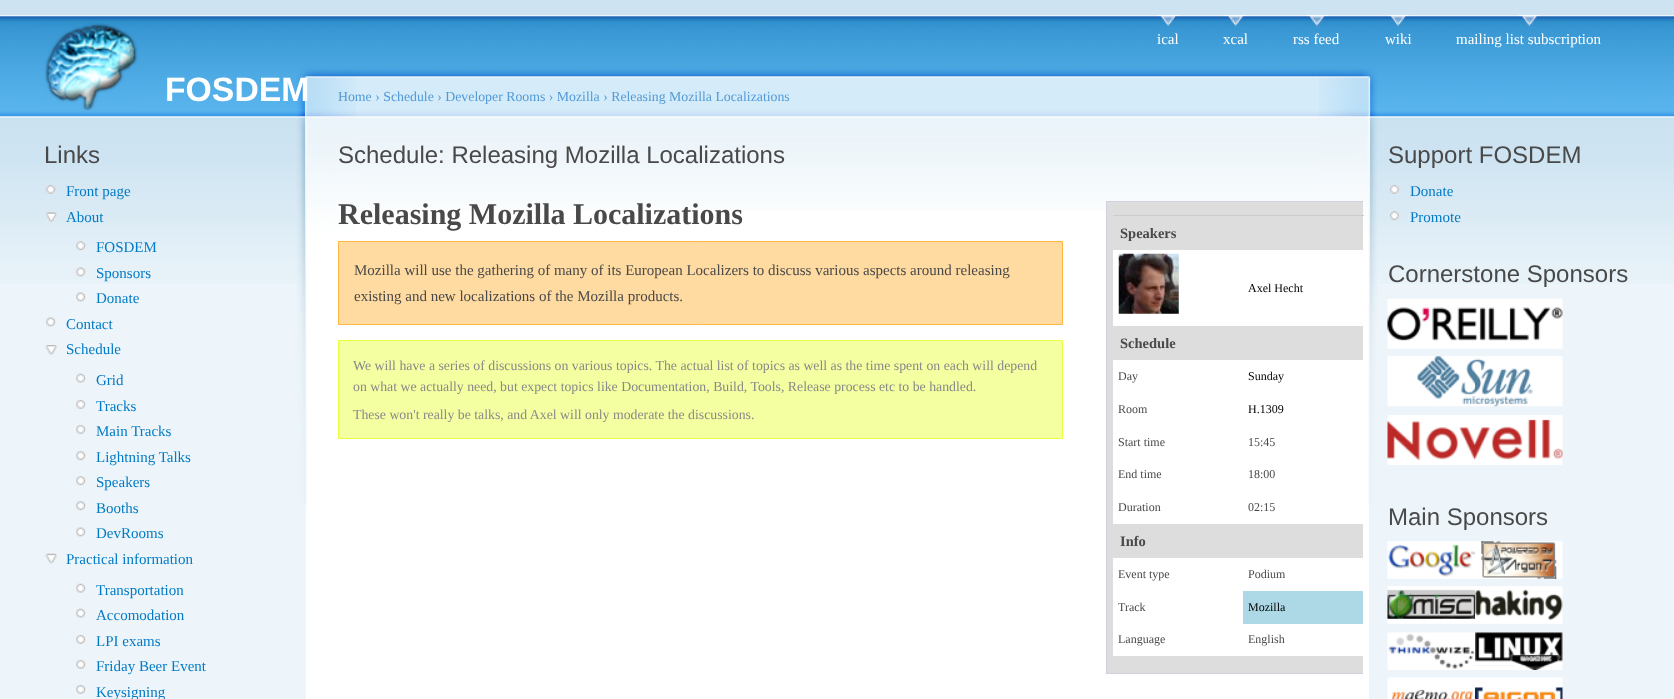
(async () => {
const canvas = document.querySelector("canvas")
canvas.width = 1674
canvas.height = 699
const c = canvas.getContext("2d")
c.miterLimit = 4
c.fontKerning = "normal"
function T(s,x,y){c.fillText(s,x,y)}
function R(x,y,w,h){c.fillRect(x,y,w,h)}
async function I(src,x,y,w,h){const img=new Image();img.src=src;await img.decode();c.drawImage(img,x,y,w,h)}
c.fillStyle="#edf5fa"
R(0,0,1674,699)
c.fillStyle="#cde3f1"
R(0,0,1674,15)
await I("1.png",0,16,1674,268)
await I("2.png",1157,15,22,12)
c.font="15px Liberation Serif"
c.fillStyle="#fff"
T("ical",1157,44)
await I("3.png",1225,15,22,12)
T("xcal",1223,44)
await I("4.png",1306,15,22,12)
T("rss feed",1293,44)
await I("5.png",1387,15,22,12)
T("wiki",1385,44)
await I("6.png",1518,15,22,12)
T("mailing list subscription",1456,44)
await I("7.png",44,23,94,88)
R(306,211,1063,488)
await I("22.png",296,65,60,440)
c.font="bold 33.75px Liberation Sans"
T("FOSDEM",165,101)
c.font="24px Liberation Sans"
c.fillStyle="#494949"
T("Links",44,163)
await I("8.png",46,185,10,9)
c.font="15px Liberation Serif"
c.fillStyle="#027ac6"
T("Front page",66,196)
await I("9.png",45,212,13,11)
T("About",66,222)
await I("10.png",76,241,10,10)
T("FOSDEM",96,252)
await I("11.png",76,267,10,10)
T("Sponsors",96,278)
await I("12.png",76,292,10,10)
T("Donate",96,303)
await I("13.png",46,317,10,10)
T("Contact",66,329)
await I("14.png",45,345,13,10)
T("Schedule",66,354)
await I("15.png",76,373,10,10)
T("Grid",96,385)
await I("16.png",76,400,10,9)
T("Tracks",96,411)
await I("16.png",76,425,10,9)
T("Main Tracks",96,436)
await I("17.png",76,451,10,10)
T("Lightning Talks",96,462)
await I("17.png",76,476,10,10)
T("Speakers",96,487)
await I("17.png",76,501,10,10)
T("Booths",96,513)
await I("13.png",76,527,10,10)
T("DevRooms",96,538)
await I("18.png",45,553,13,11)
T("Practical information",66,564)
await I("19.png",76,583,10,10)
T("Transportation",96,595)
await I("15.png",76,608,10,10)
T("Accomodation",96,620)
await I("16.png",76,635,10,9)
T("LPI exams",96,646)
await I("16.png",76,660,10,9)
T("Friday Beer Event",96,671)
await I("16.png",76,685,10,9)
T("Keysigning",96,697)
await I("20.png",356,65,963,146)
await I("21.png",1319,65,59,440)
c.font="13.8px Liberation Serif"
c.fillStyle="#529ad6"
T("Home › Schedule › Developer Rooms › Mozilla › Releasing Mozilla Localizations",338,101)
c.font="24px Liberation Sans"
c.fillStyle="#494949"
T("Schedule: Releasing Mozilla Localizations",338,163)
c.font="bold 30px Liberation Serif"
T("Releasing Mozilla Localizations",338,224)
c.fillStyle="#ffdba1"
c.beginPath()
c.rect(338.5,241.5,724,83)
c.fill()
c.strokeStyle="#ffb643"
c.stroke()
c.font="15px Liberation Serif"
c.fillStyle="#494949"
T("Mozilla will use the gathering of many of its European Localizers to discuss various aspects around releasing",354,275)
T("existing and new localizations of the Mozilla products.",354,301)
c.fillStyle="#ddd"
R(1107,202,256,471)
c.fillStyle="#d0d0e0"
R(1106,201,257,1)
R(1106,673,257,1)
R(1106,201,1,473)
c.fillStyle="#fff"
R(1113,250,250,406)
c.fillStyle="#ccc"
R(1113,215,251,1)
c.font="bold 14.5px Liberation Serif"
c.fillStyle="#494949"
T("Speakers",1120,238)
await I("23.png",1118,253,61,61)
c.font="12px Liberation Serif"
c.fillStyle="#000"
T("Axel Hecht",1248,292)
c.fillStyle="#ddd"
R(1113,326,250,34)
c.font="bold 14.5px Liberation Serif"
c.fillStyle="#494949"
T("Schedule",1120,348)
c.font="12px Liberation Serif"
T("Day",1118,380)
c.fillStyle="#000"
T("Sunday",1248,380)
c.fillStyle="#494949"
T("Room",1118,413)
c.fillStyle="#000"
T("H.1309",1248,413)
c.fillStyle="#494949"
T("Start time",1118,446)
T("15:45",1248,446)
T("End time",1118,478)
T("18:00",1248,478)
T("Duration",1118,511)
T("02:15",1248,511)
c.fillStyle="#ddd"
R(1113,524,250,34)
c.font="bold 14.5px Liberation Serif"
c.fillStyle="#494949"
T("Info",1120,546)
c.font="12px Liberation Serif"
T("Event type",1118,578)
T("Podium",1248,578)
T("Track",1118,611)
c.fillStyle="#add8e6"
R(1243,591,120,33)
c.fillStyle="#000"
T("Mozilla",1248,611)
c.fillStyle="#494949"
T("Language",1118,643)
T("English",1248,643)
c.fillStyle="#f4ffa1"
c.beginPath()
c.rect(338.5,340.5,724,98)
c.fill()
c.strokeStyle="#e9ff42"
c.stroke()
c.font="13.8px Liberation Serif"
c.fillStyle="#898989"
T("We will have a series of discussions on various topics. The actual list of topics as well as the time spent on each will depend",353,370)
T("on what we actually need, but expect topics like Documentation, Build, Tools, Release process etc to be handled.",353,391)
T("These won't really be talks, and Axel will only moderate the discussions.",353,419)
c.font="24px Liberation Sans"
c.fillStyle="#494949"
T("Support FOSDEM",1388,163)
await I("24.png",1390,185,9,9)
c.font="15px Liberation Serif"
c.fillStyle="#027ac6"
T("Donate",1410,196)
await I("25.png",1390,211,9,10)
T("Promote",1410,222)
c.font="24px Liberation Sans"
c.fillStyle="#494949"
T("Cornerstone Sponsors",1388,282)
await I("26.png",1387,298,176,51)
await I("27.png",1387,356,176,51)
await I("28.png",1387,415,176,50)
T("Main Sponsors",1388,525)
await I("29.png",1387,541,88,38)
await I("30.png",1475,541,88,38)
await I("31.png",1387,586,88,38)
await I("32.png",1475,586,88,38)
await I("33.png",1387,632,88,38)
await I("34.png",1475,632,88,38)
await I("35.png",1387,677,88,22)
await I("36.png",1475,677,88,22)
})()
